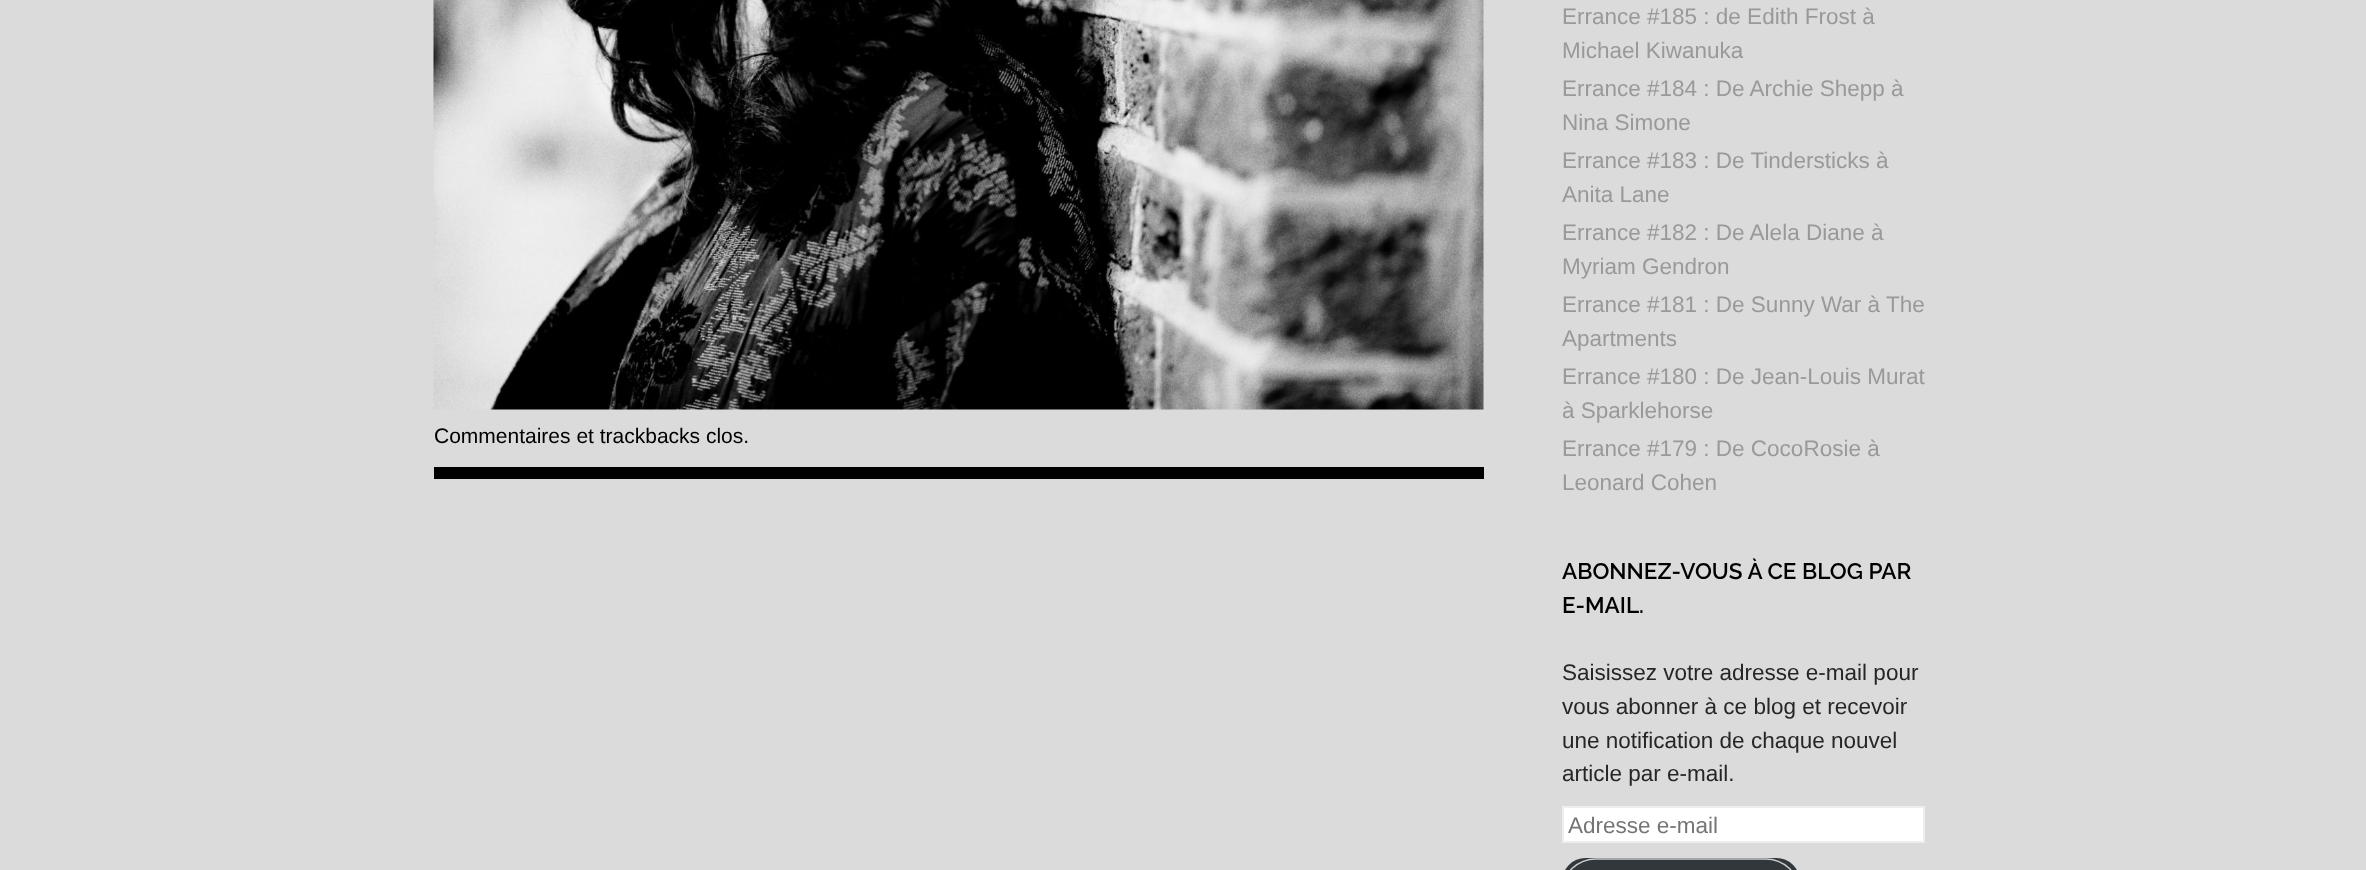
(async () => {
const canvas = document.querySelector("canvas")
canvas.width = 2366
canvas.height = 870
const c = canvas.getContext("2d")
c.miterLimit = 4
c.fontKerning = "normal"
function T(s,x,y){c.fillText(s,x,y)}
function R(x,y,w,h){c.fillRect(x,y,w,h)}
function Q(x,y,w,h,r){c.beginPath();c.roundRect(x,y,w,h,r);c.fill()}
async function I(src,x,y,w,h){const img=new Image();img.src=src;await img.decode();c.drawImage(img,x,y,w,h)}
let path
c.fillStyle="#dbdbdb"
R(0,0,2366,870)
c.fillStyle="#000"
R(434,467,1050,12)
await I("1.png",433,0,1051,410)
c.font="21px Liberation Sans"
T("Commentaires et trackbacks clos.",434,443)
c.font="22.5px Liberation Sans"
c.fillStyle="#999"
T("Errance #185 : de Edith Frost à",1562,24)
T("Michael Kiwanuka",1562,58)
T("Errance #184 : De Archie Shepp à",1562,96)
T("Nina Simone",1562,130)
T("Errance #183 : De Tindersticks à",1562,168)
T("Anita Lane",1562,202)
T("Errance #182 : De Alela Diane à",1562,240)
T("Myriam Gendron",1562,274)
T("Errance #181 : De Sunny War à The",1562,312)
T("Apartments",1562,346)
T("Errance #180 : De Jean-Louis Murat",1562,384)
T("à Sparklehorse",1562,418)
T("Errance #179 : De CocoRosie à",1562,456)
T("Leonard Cohen",1562,490)
c.font="600 22.5px Raleway"
c.fillStyle="#000"
T("ABONNEZ-VOUS À CE BLOG PAR",1562,579)
T("E-MAIL.",1562,613)
c.font="22.5px Liberation Sans"
c.fillStyle="#262626"
T("Saisissez votre adresse e-mail pour",1562,680)
T("vous abonner à ce blog et recevoir",1562,714)
T("une notification de chaque nouvel",1562,748)
T("article par e-mail.",1562,781)
c.fillStyle="#fff"
c.beginPath()
c.rect(1563,807,361,35)
c.fill()
c.strokeStyle="#eee"
c.lineWidth=2
c.stroke()
c.fillStyle="#757575"
T("Adresse e-mail",1568,833)
c.fillStyle="#32373c"
Q(1562,858,238,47,34.5)
path = new Path2D("M1572 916.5c-6-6.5-10-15-10-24c0-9 4-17.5 10-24c6.5-6 15-9.5 24-9.5h169.5c9 0 17.5 3.5 24 9.5c6 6.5 9.5 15 9.5 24c0 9-3.5 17.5-9.5 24")
c.strokeStyle="#ccc"
c.lineWidth=1.5
c.stroke(path)
})()
